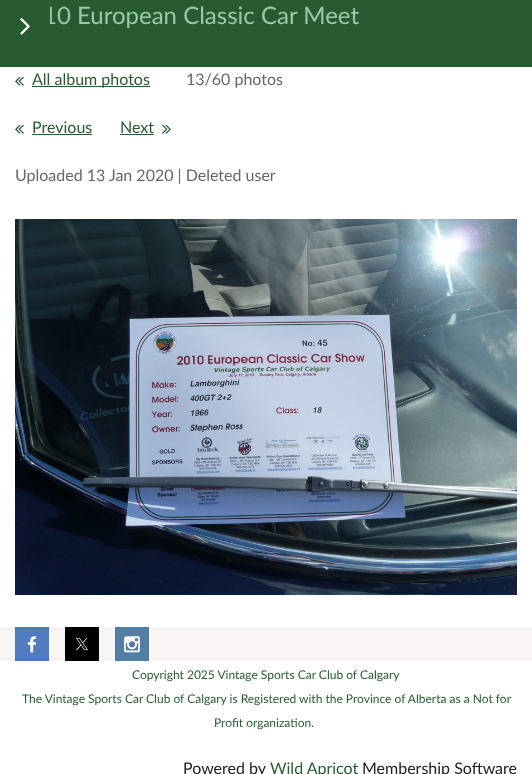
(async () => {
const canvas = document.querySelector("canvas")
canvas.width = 532
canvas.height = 774
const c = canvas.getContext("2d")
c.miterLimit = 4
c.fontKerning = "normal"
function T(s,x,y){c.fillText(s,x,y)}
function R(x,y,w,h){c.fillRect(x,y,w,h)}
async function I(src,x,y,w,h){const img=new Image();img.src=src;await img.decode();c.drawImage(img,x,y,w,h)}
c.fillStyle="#fff"
R(0,0,532,774)
c.fillStyle="#275c32"
R(0,0,532,67)
c.font="24px Lato"
c.fillStyle="#9cc9a5"
T("10 European Classic Car Meet",43,24)
await I("1.png",15,76,9,10)
c.fillStyle="#275c32"
R(32,86,118,1)
c.font="16px Lato"
T("All album photos",32,85)
c.fillStyle="#676767"
T("13/60 photos",186,85)
await I("1.png",15,124,9,10)
c.fillStyle="#275c32"
T("Previous",32,133)
R(32,134,60,1)
T("Next",120,133)
R(120,134,34,1)
await I("2.png",162,124,9,10)
c.fillStyle="#676767"
T("Uploaded 13 Jan 2020 | Deleted user",15,181)
await I("3.png",15,219,502,376)
c.fillStyle="#f9f5f5"
R(0,627,532,34)
c.fillStyle="#507bbe"
R(15,627,34,34)
await I("4.png",27,636,10,17)
c.fillStyle="#000"
R(65,627,34,34)
await I("5.png",76,637,12,14)
c.fillStyle="#527ea3"
R(115,627,34,34)
await I("6.png",124,636,16,17)
c.font="12px Lato"
c.fillStyle="#275c32"
T("Copyright 2025 Vintage Sports Car Club of Calgary",132,679)
T("The Vintage Sports Car Club of Calgary is Registered with the Province of Alberta as a Not for",22,703)
T("Profit organization.",214,727)
c.font="16px Lato"
c.fillStyle="#222"
T("Powered by",183,774)
c.fillStyle="#275c32"
T("Wild Apricot",270,774)
c.fillStyle="#222"
T("Membership Software",362,774)
c.fillStyle="#275c32"
R(44,6,6,18)
await I("7.png",20,18,10,17)
})()
